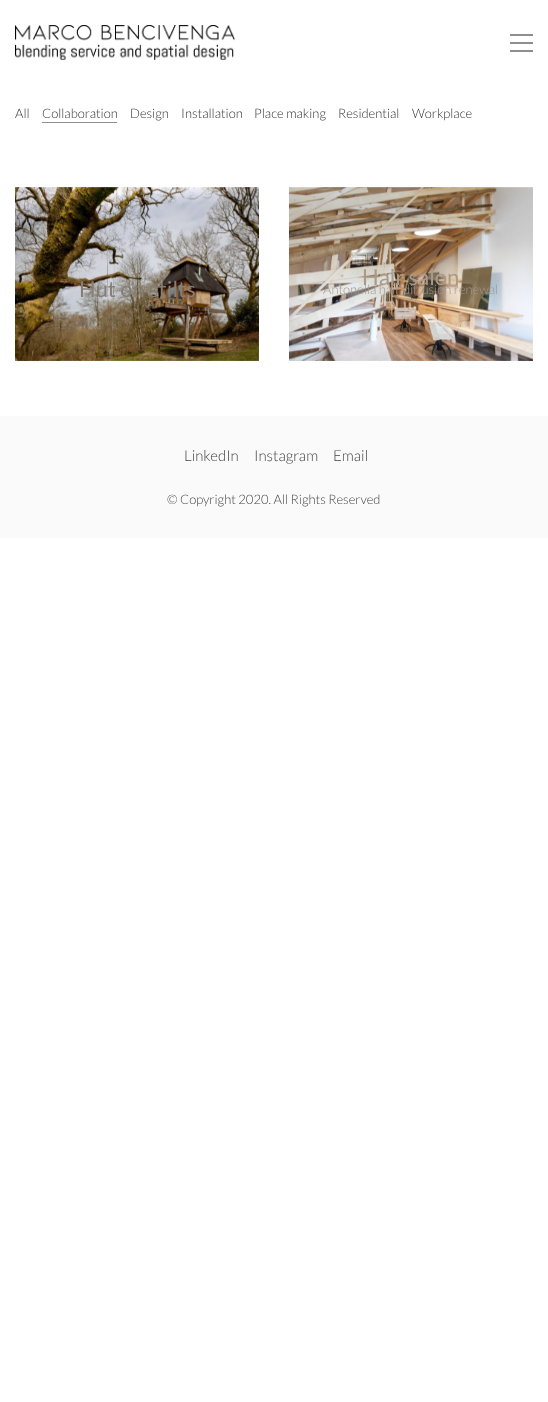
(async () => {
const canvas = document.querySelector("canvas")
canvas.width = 548
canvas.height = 1402
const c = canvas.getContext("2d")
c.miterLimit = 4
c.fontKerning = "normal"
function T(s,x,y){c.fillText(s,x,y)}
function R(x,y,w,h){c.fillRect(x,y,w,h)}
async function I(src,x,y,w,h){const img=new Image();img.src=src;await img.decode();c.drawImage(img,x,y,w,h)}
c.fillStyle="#fff"
R(0,0,548,1402)
await I("1.png",15,25,220,35)
c.fillStyle="#8e8e8e"
R(510,34,23,2)
R(510,42,23,2)
R(510,50,23,2)
c.font="300 13px Lato"
c.fillStyle="#333"
T("All",15,118)
T("Collaboration",42,118)
c.fillStyle="#8e8e8e"
R(42,122,75,1)
c.fillStyle="#333"
T("Design",130,118)
T("Installation",181,118)
T("Place making",254,118)
T("Residential",338,118)
T("Workplace",412,118)
await I("2.png",15,187,244,174)
c.font="22px Lato"
c.fillStyle="#877e75"
T("Hut on stilts",79,297)
await I("3.png",289,187,244,174)
c.fillStyle="#aa9a88"
T("Hair salon",362,285)
c.font="300 13px Lato"
c.fillStyle="#a1978b"
T("Antonella hair diffusion renewal",323,294)
c.fillStyle="#fafafa"
R(0,416,548,122)
c.font="300 15px Lato"
c.fillStyle="#444"
T("LinkedIn",184,461)
T("Instagram",254,461)
T("Email",333,461)
c.font="300 13px Lato"
T("© Copyright 2020. All Rights Reserved",167,504)
})()
